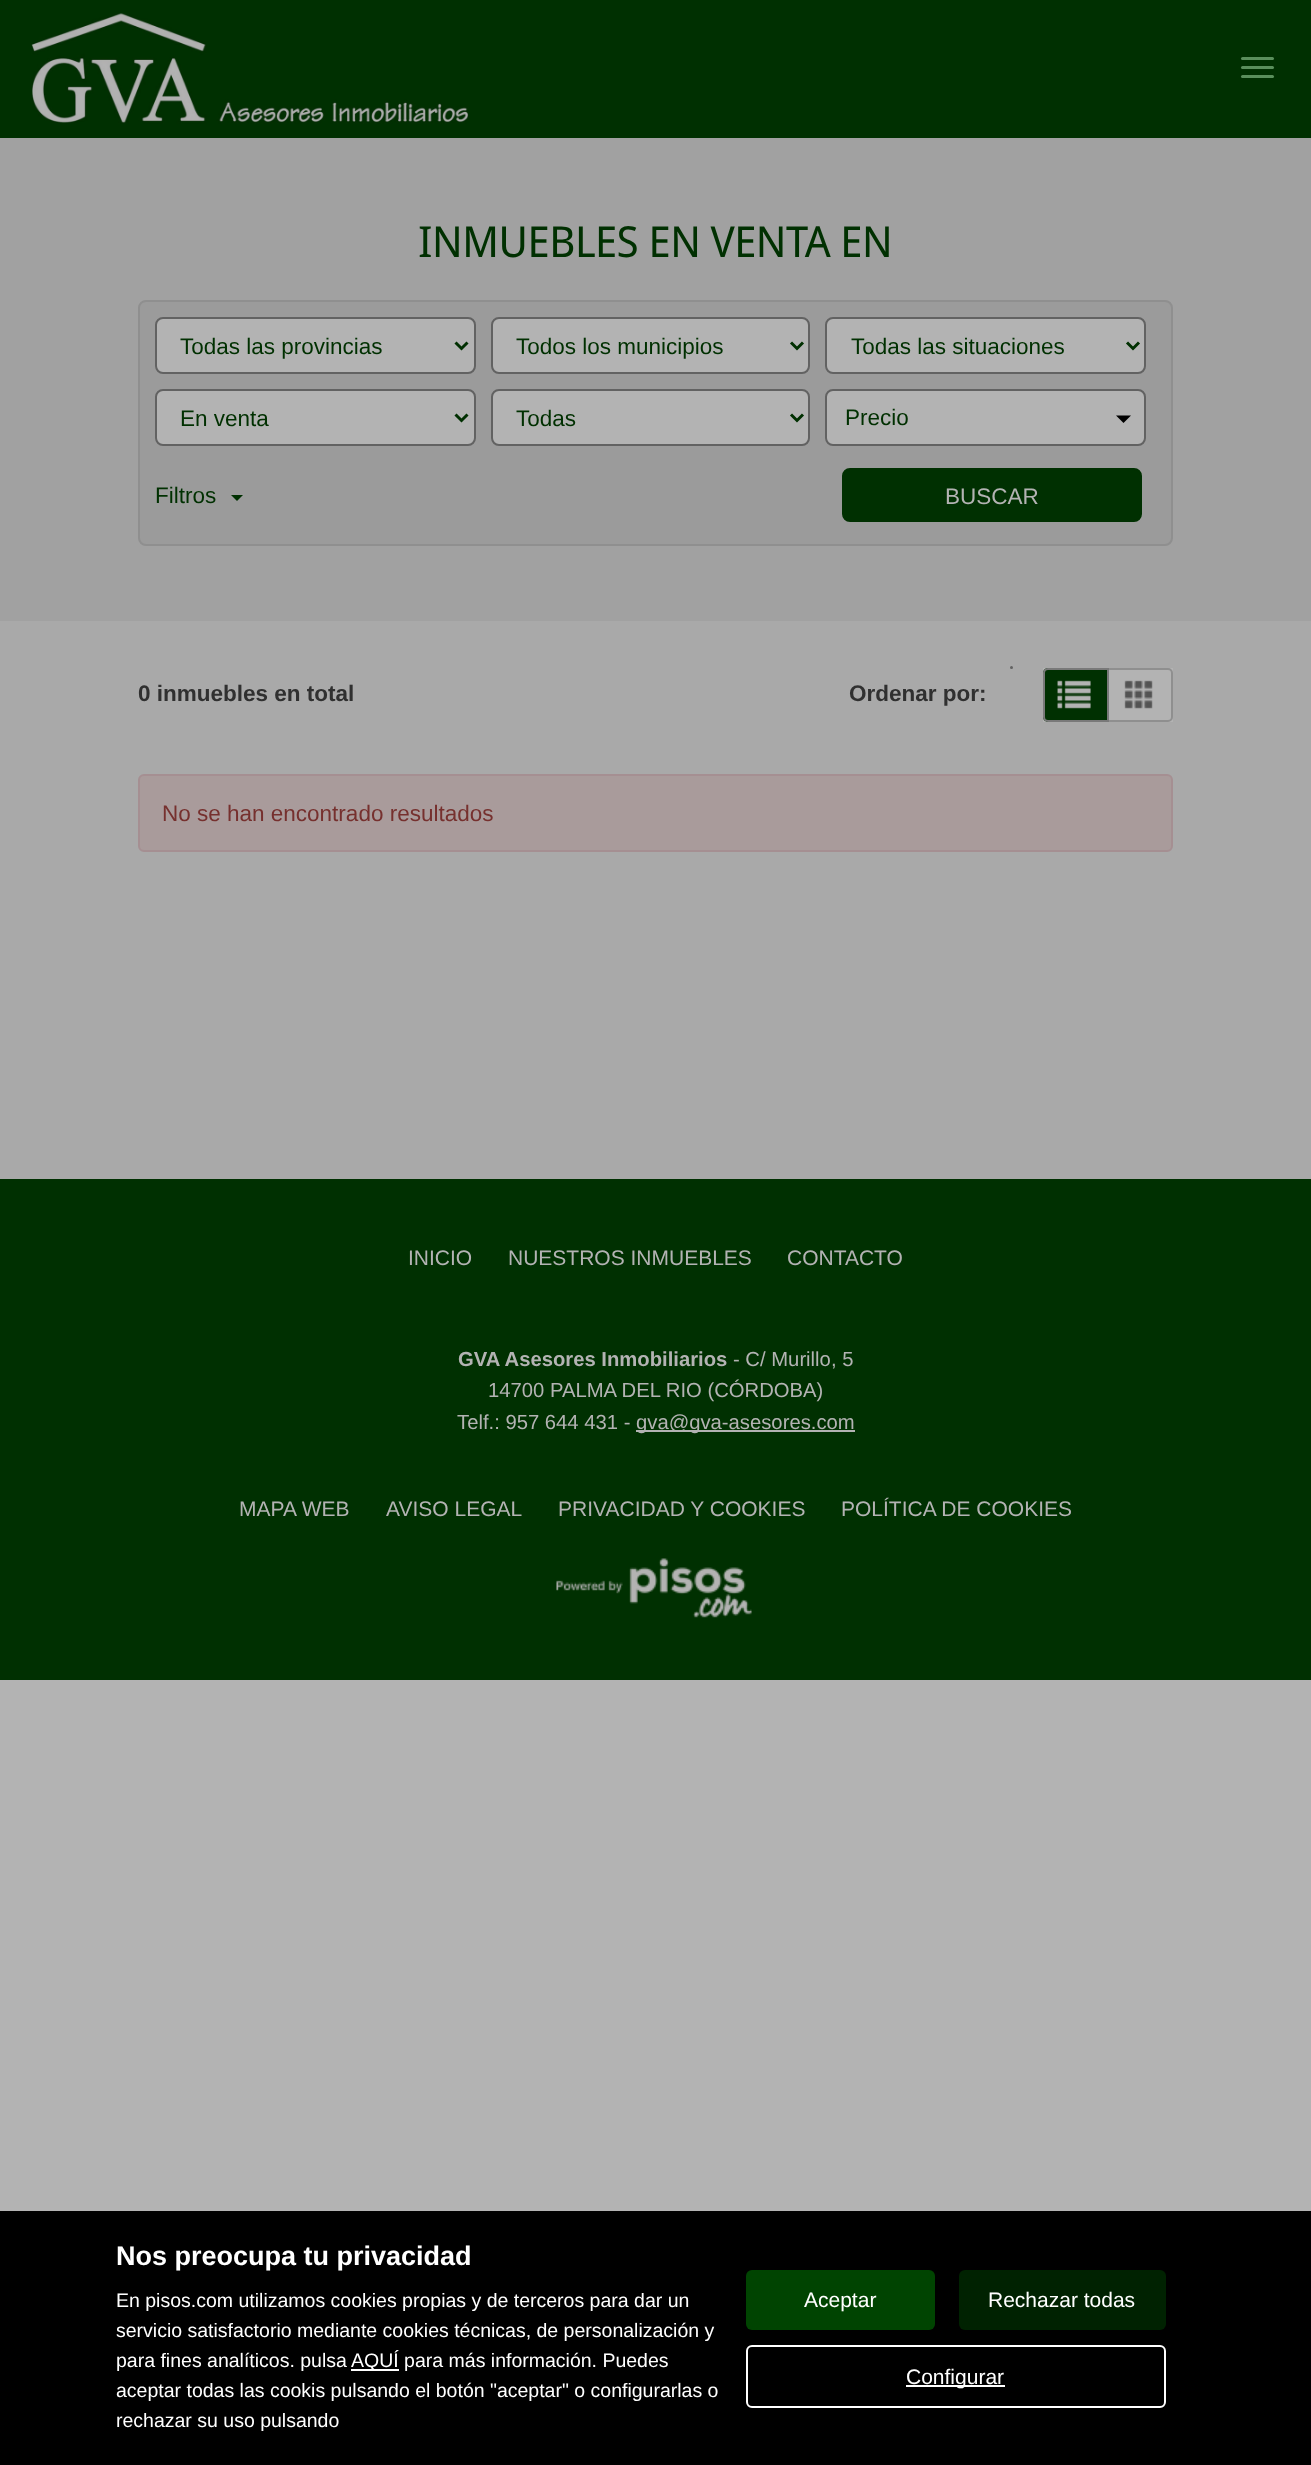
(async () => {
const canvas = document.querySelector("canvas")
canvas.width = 1311
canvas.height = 2465
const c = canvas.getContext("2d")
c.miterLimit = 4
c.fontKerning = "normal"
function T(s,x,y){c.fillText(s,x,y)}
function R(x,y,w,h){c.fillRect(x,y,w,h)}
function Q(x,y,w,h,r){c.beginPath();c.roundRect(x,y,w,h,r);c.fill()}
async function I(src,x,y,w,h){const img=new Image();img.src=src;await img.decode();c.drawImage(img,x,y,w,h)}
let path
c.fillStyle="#b3b3b3"
R(0,0,1311,2465)
c.fillStyle="#003001"
R(0,0,1311,138)
await I("1.png",31,13,438,111)
c.fillStyle="#5a8f5c"
Q(1241,57,33,3,1.5)
Q(1241,66,33,3,1.5)
Q(1241,75,33,3,1.5)
c.fillStyle="#a1a1a1"
R(0,138,1311,483)
c.letterSpacing="-0.85px"
c.font="42.75px Droid Sans"
c.fillStyle="#003001"
T("INMUEBLES EN VENTA EN",418,257)
c.fillStyle="#9b9b9b"
c.beginPath()
c.roundRect(139,301,1033,244,7)
c.fill()
c.strokeStyle="#8f8f8f"
c.lineWidth=2
c.stroke()
c.fillStyle="#b3b3b3"
c.beginPath()
c.roundRect(156,318,319,55,7)
c.fill()
c.strokeStyle="#626262"
c.stroke()
path = new Path2D("M455.5 342.5l6 6l6-6")
c.strokeStyle="#003001"
c.lineWidth=3
c.stroke(path)
c.letterSpacing="0px"
c.font="22.5px Liberation Sans"
c.fillStyle="#003001"
T("Todas las provincias",180,354)
c.fillStyle="#b3b3b3"
c.beginPath()
c.roundRect(492,318,317,55,7)
c.fill()
c.strokeStyle="#626262"
c.lineWidth=2
c.stroke()
path = new Path2D("M791 342.5l6 6l6-6")
c.strokeStyle="#003001"
c.lineWidth=3
c.stroke(path)
c.fillStyle="#003001"
T("Todos los municipios",516,354)
c.fillStyle="#b3b3b3"
c.beginPath()
c.roundRect(826,318,319,55,7)
c.fill()
c.strokeStyle="#626262"
c.lineWidth=2
c.stroke()
path = new Path2D("M1127 342.5l6 6l6-6")
c.strokeStyle="#003001"
c.lineWidth=3
c.stroke(path)
c.fillStyle="#003001"
T("Todas las situaciones",851,354)
c.fillStyle="#b3b3b3"
c.beginPath()
c.roundRect(156,390,319,55,7)
c.fill()
c.strokeStyle="#626262"
c.lineWidth=2
c.stroke()
path = new Path2D("M455.5 414.5l6 6l6-6")
c.strokeStyle="#003001"
c.lineWidth=3
c.stroke(path)
c.fillStyle="#003001"
T("En venta",180,426)
c.fillStyle="#b3b3b3"
c.beginPath()
c.roundRect(492,390,317,55,7)
c.fill()
c.strokeStyle="#626262"
c.lineWidth=2
c.stroke()
path = new Path2D("M791 414.5l6 6l6-6")
c.strokeStyle="#003001"
c.lineWidth=3
c.stroke(path)
c.fillStyle="#003001"
T("Todas",516,426)
c.fillStyle="#b3b3b3"
c.beginPath()
c.roundRect(826,390,319,55,7)
c.fill()
c.strokeStyle="#626262"
c.lineWidth=2
c.stroke()
c.fillStyle="#003001"
T("Precio",845,425)
c.fillStyle="#000"
path = new Path2D("M1116 415.5h15l-7.5 7.5z")
c.fill(path)
c.fillStyle="#003001"
T("Filtros",155,503)
path = new Path2D("M231 495h12l-6 6z")
c.fill(path)
c.beginPath()
c.roundRect(843,469,298,52,7)
c.fill()
c.strokeStyle="#003001"
c.stroke()
c.fillStyle="#b3b3b3"
T("BUSCAR",945,504)
c.fillStyle="#a9a9a9"
R(0,621,1311,558)
c.font="bold 22.5px Liberation Sans"
c.fillStyle="#303030"
T("0 inmuebles en total",138,701)
c.fillStyle="#626262"
c.beginPath()
c.arc(1011.5,667.5,1.5,0,7)
c.fill()
c.fillStyle="#303030"
T("Ordenar por:",849,701)
c.fillStyle="#b3b3b3"
R(1043,668,130,54)
await I("3.png",1124,680,29,29)
c.beginPath()
c.roundRect(1108,669,64,52,[0,4,4,0])
c.strokeStyle="#8f8f8f"
c.stroke()
c.fillStyle="#003001"
c.beginPath()
c.roundRect(1043,668,66,54,[5,0,0,5])
c.fill()
await I("2.png",1057,680,34,29)
c.beginPath()
c.roundRect(1044,669,64,52,[4,0,0,4])
c.strokeStyle="#797979"
c.stroke()
c.fillStyle="#a99b9b"
c.beginPath()
c.roundRect(139,775,1033,76,5)
c.fill()
c.strokeStyle="#a58f92"
c.stroke()
c.font="22.5px Liberation Sans"
c.fillStyle="#76302e"
T("No se han encontrado resultados",162,821)
c.fillStyle="#003001"
R(0,1179,1311,501)
c.font="21px Liberation Sans"
c.fillStyle="#b3b3b3"
T("INICIO",408,1265)
T("NUESTROS INMUEBLES",508,1265)
T("CONTACTO",787,1265)
c.font="bold 20.25px Liberation Sans"
T("GVA Asesores Inmobiliarios",458,1366)
c.font="20.25px Liberation Sans"
T("- C/ Murillo, 5",733,1366)
T("14700 PALMA DEL RIO (CÓRDOBA)",488,1397)
T("Telf.: 957 644 431 -",457,1429)
R(636,1430,219,2)
T("gva@gva-asesores.com",636,1429)
c.font="21px Liberation Sans"
T("MAPA WEB",239,1516)
T("AVISO LEGAL",386,1516)
T("PRIVACIDAD Y COOKIES",558,1516)
T("POLÍTICA DE COOKIES",841,1516)
await I("4.png",556,1558,196,60)
c.fillStyle="#000"
R(0,2211,1311,254)
c.font="bold 27px Liberation Sans"
c.fillStyle="#fff"
T("Nos preocupa tu privacidad",116,2265)
c.font="19.5px Liberation Sans"
T("En pisos.com utilizamos cookies propias y de terceros para dar un",116,2307)
T("servicio satisfactorio mediante cookies técnicas, de personalización y",116,2337)
T("para fines analíticos. pulsa",116,2367)
R(351,2369,48,2)
T("AQUÍ para más información. Puedes",351,2367)
T("aceptar todas las cookis pulsando el botón \"aceptar\" o configurarlas o",116,2397)
T("rechazar su uso pulsando",116,2427)
c.fillStyle="#004401"
Q(746,2270,189,60,6)
c.font="21px Liberation Sans"
c.fillStyle="#fff"
T("Aceptar",804,2307)
c.fillStyle="#002201"
Q(959,2270,207,60,6)
c.fillStyle="#fff"
T("Rechazar todas",988,2307)
c.beginPath()
c.roundRect(747,2346,418,61,5)
c.strokeStyle="#fff"
c.stroke()
R(906,2385,99,2)
T("Configurar",906,2384)
})()
